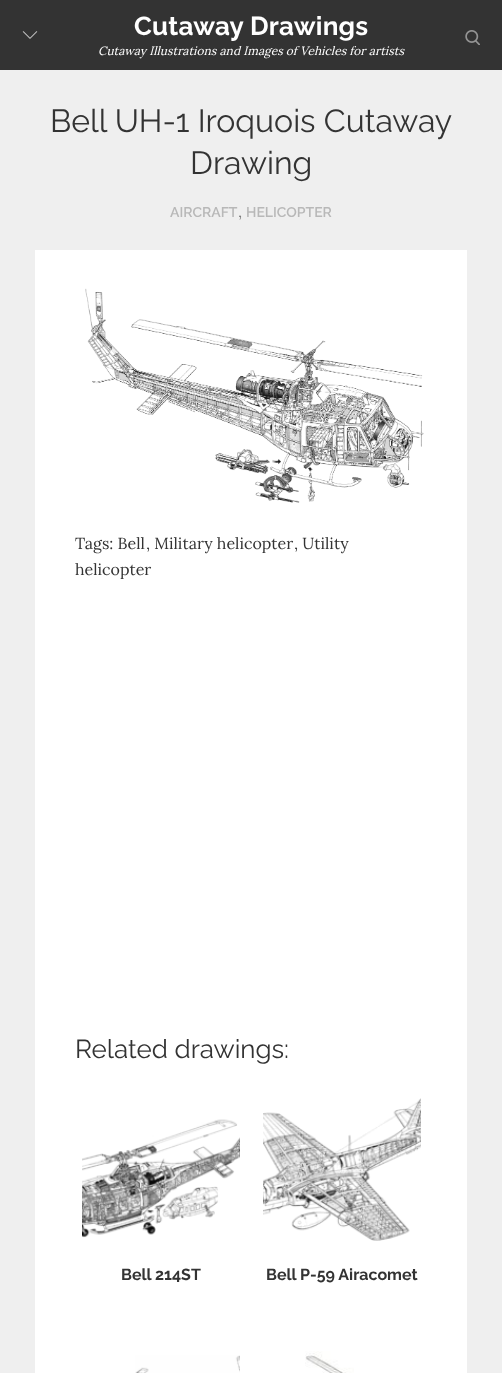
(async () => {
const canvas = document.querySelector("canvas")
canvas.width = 502
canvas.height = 1373
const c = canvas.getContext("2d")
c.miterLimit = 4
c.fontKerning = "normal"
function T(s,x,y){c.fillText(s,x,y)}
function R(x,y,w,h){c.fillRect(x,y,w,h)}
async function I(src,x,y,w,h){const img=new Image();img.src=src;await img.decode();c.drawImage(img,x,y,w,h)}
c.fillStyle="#efefef"
R(0,0,502,1373)
c.fillStyle="#333"
R(0,0,502,70)
await I("1.png",22,31,16,8)
c.letterSpacing="0.25px"
c.font="bold 26px Raleway"
c.fillStyle="#fff"
T("Cutaway Drawings",134,35)
c.letterSpacing="0px"
c.font="italic 12px Lora"
T("Cutaway Illustrations and Images of Vehicles for artists",98,55)
await I("2.png",465,30,15,15)
c.font="32px Raleway"
c.fillStyle="#333"
T("Bell UH-1 Iroquois Cutaway",50,132)
T("Drawing",190,174)
c.font="600 14px Raleway"
c.fillStyle="#b8b8b8"
T("AIRCRAFT",170,217)
c.font="16px Lora"
c.fillStyle="#7b7b7b"
T(",",238,217)
c.font="600 14px Raleway"
c.fillStyle="#b8b8b8"
T("HELICOPTER",246,217)
c.fillStyle="#fff"
R(35,250,432,1123)
await I("3.png",85,288,339,215)
c.font="16px Lora"
c.fillStyle="#333"
T("Tags: Bell",75,549)
T(", Military helicopter",146,549)
T(", Utility",294,549)
T("helicopter",75,575)
c.font="26px Raleway"
T("Related drawings:",75,1058)
await I("4.png",82,1119,158,119)
c.font="bold 16px Raleway"
T("Bell 214ST",121,1280)
await I("5.png",263,1098,158,143)
T("Bell P-59 Airacomet",266,1280)
await I("6.png",135,1355,105,18)
await I("7.png",305,1351,49,22)
})()
